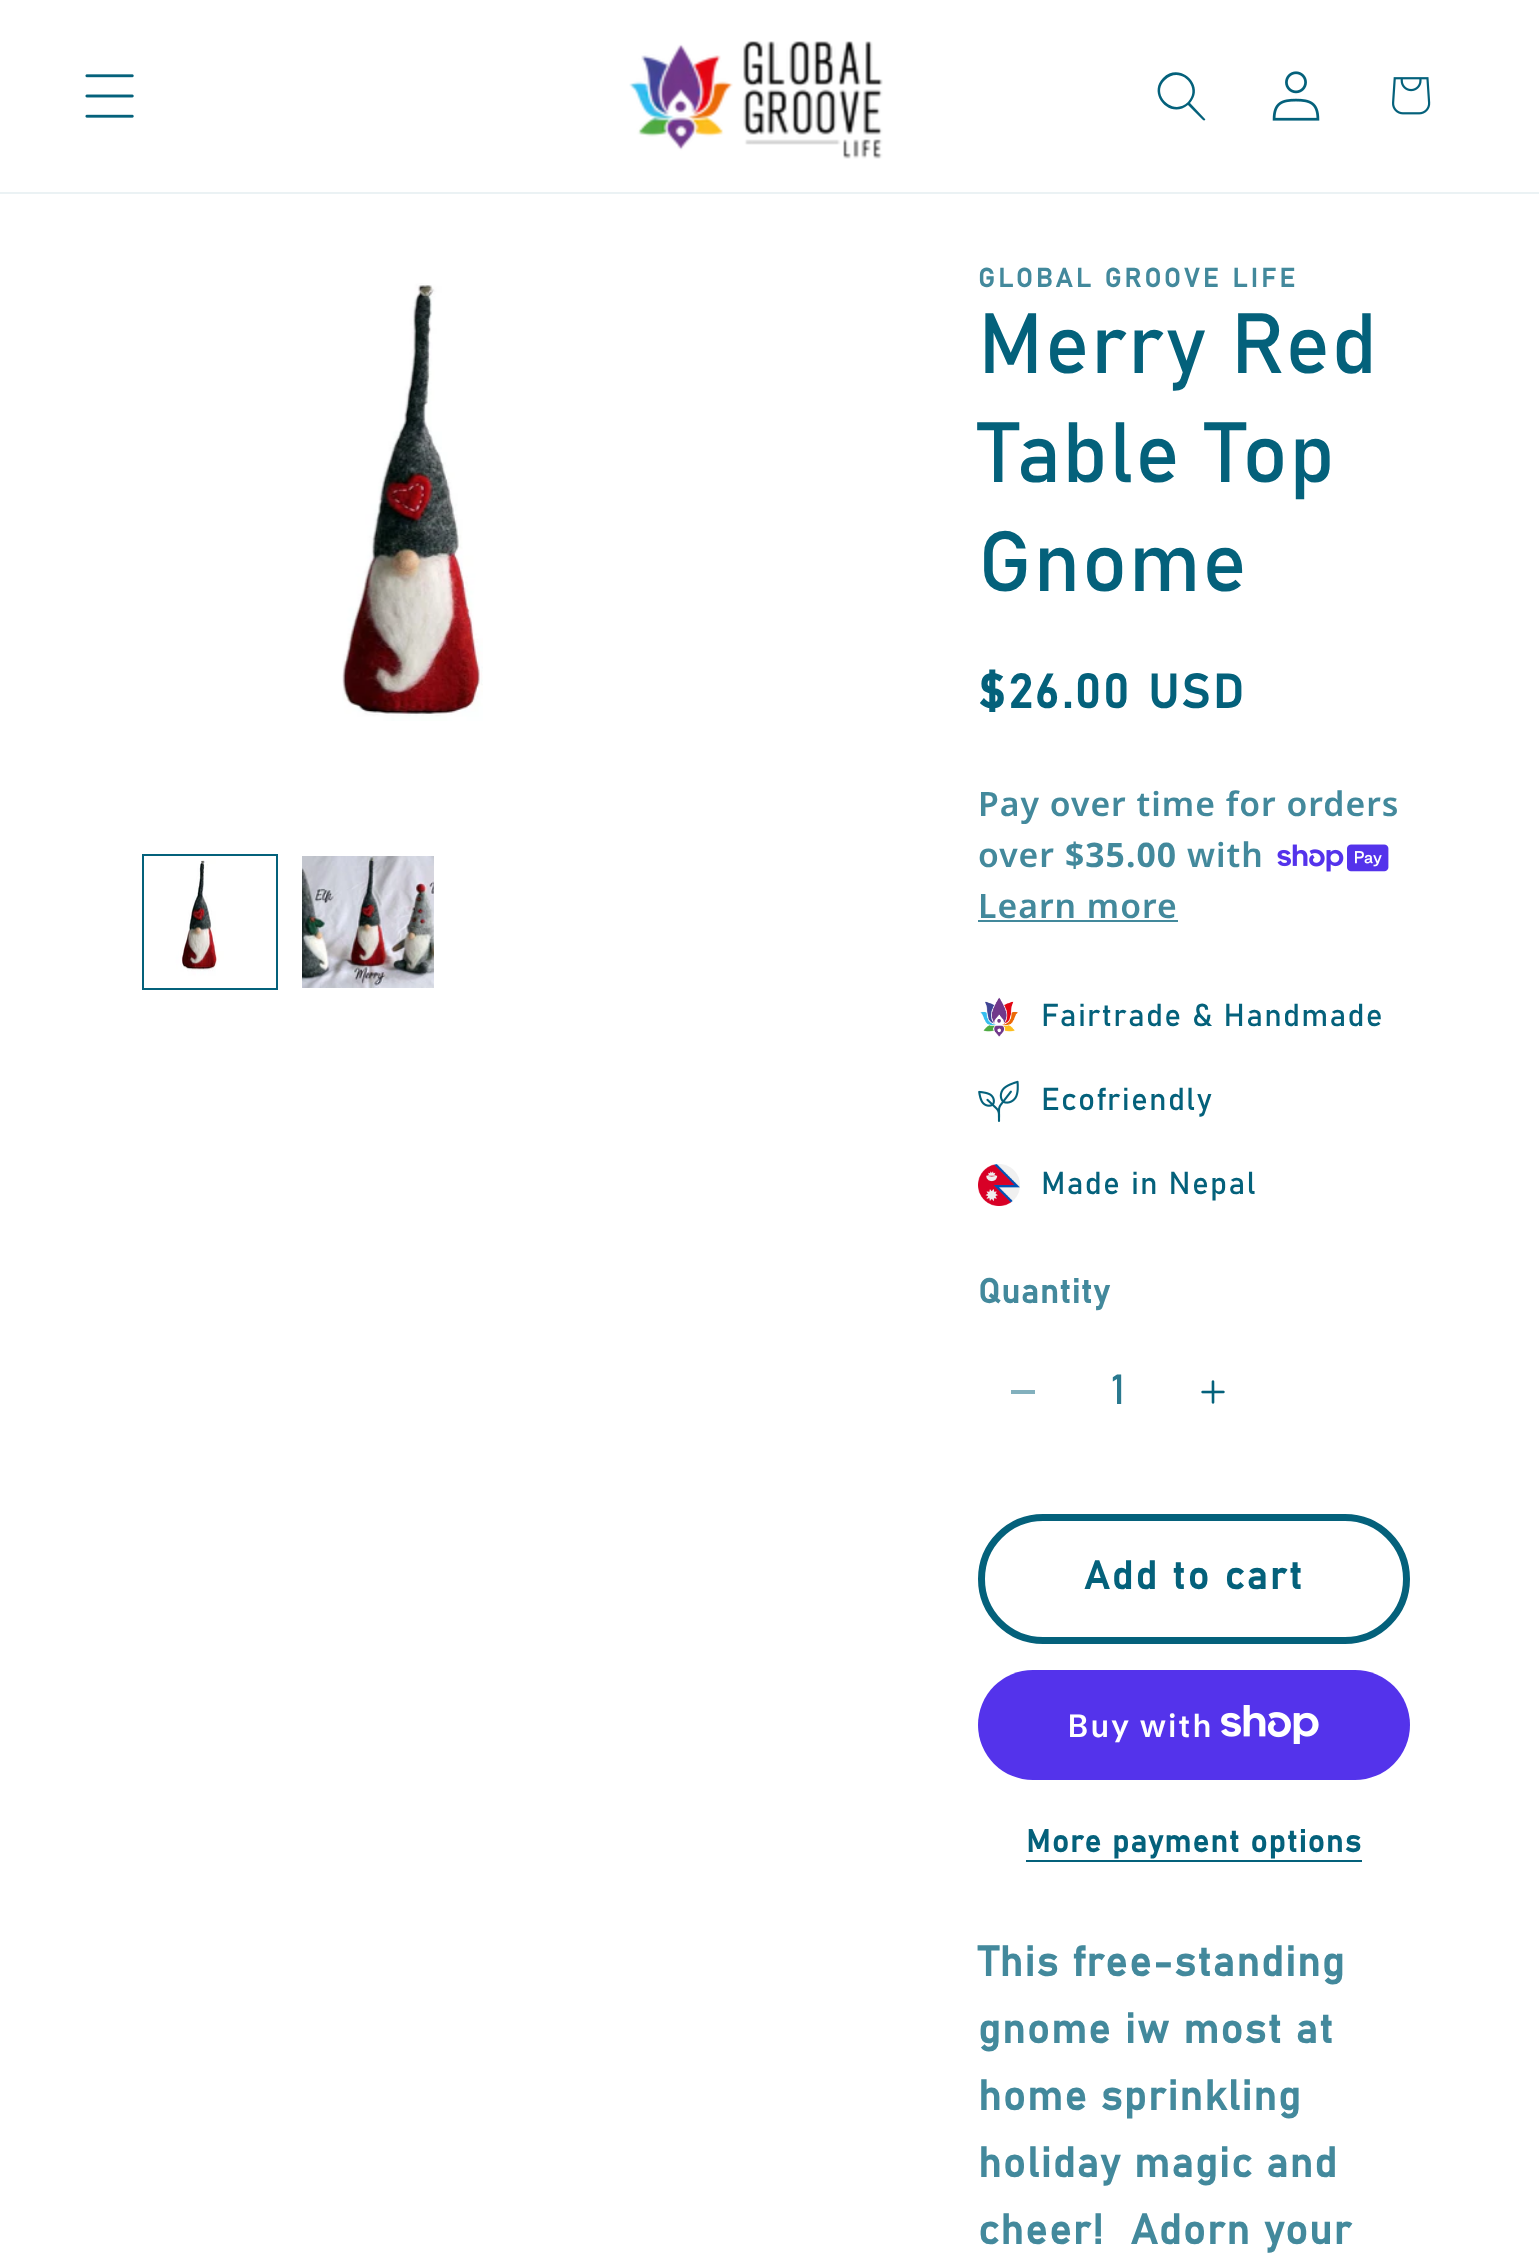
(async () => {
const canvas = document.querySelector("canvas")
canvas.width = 1539
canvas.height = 2267
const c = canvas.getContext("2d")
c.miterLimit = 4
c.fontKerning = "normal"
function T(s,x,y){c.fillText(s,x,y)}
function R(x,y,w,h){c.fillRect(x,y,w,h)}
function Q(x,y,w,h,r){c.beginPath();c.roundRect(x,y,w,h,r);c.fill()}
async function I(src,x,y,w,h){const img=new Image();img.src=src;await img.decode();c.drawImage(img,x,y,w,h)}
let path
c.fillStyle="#fff"
R(0,0,1539,2267)
c.fillStyle="#ebf2f4"
R(0,192,1539,2)
await I("1.png",85,74,49,44)
await I("2.png",629,41,254,118)
c.fillStyle="#04617b"
path = new Path2D("M1188 102c-15 15-38-8-23-22c15-15 37 7 23 22m0 3c-18 15-41-11-25-27c17-17 43 8 27 25l15 16c1 1-1 2-2 1z")
c.fill(path,"evenodd")
await I("3.png",1272,71,48,50)
await I("4.png",1392,77,39,38)
await I("5.png",342,283,141,438)
c.strokeStyle="#04617b"
c.lineWidth=3
c.strokeRect(143.5,855.5,133,133)
await I("6.png",144,856,132,132)
await I("7.png",302,856,132,132)
c.letterSpacing="3.4px"
c.font="bold 26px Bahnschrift"
c.fillStyle="#43899c"
T("GLOBAL GROOVE LIFE",978,287)
c.letterSpacing="1.25px"
c.font="84px Bahnschrift"
c.fillStyle="#04617b"
T("Merry Red",978,373)
T("Table Top",978,482)
T("Gnome",978,591)
c.letterSpacing="3.4px"
c.font="bold 46.75px Bahnschrift"
T("$26.00 USD",978,708)
c.letterSpacing="1px"
c.font="600 33.75px Noto Sans"
c.fillStyle="#43899c"
T("Pay over time for orders",978,816)
T("over",978,867)
c.font="bold 33.75px Noto Sans"
T("$35.00",1065,867)
c.font="600 33.75px Noto Sans"
T("with",1187,867)
await I("8.png",1277,844,112,28)
T("Learn more",978,918)
R(978,920,200,2)
await I("9.png",980,997,38,40)
c.letterSpacing="1.25px"
c.font="31.5px Bahnschrift"
c.fillStyle="#04617b"
T("Fairtrade & Handmade",1041,1026)
await I("10.png",978,1080,41,42)
T("Ecofriendly",1041,1110)
await I("11.png",978,1164,42,42)
T("Made in Nepal",1041,1194)
c.letterSpacing="1px"
c.font="bold 33.75px Bahnschrift"
c.fillStyle="#43899c"
T("Quantity",978,1303)
c.fillStyle="#82b0bd"
R(1011,1390,24,4)
c.letterSpacing="0px"
c.font="41.5px Bahnschrift"
c.fillStyle="#2a798f"
T("1",1111,1404)
await I("12.png",1201,1380,24,24)
c.beginPath()
c.roundRect(981.5,1517.5,425,123,61.5)
c.lineWidth=7
c.stroke()
c.letterSpacing="2.6px"
c.font="bold 39px Bahnschrift"
c.fillStyle="#04617b"
T("Add to cart",1084,1589)
c.fillStyle="#5433eb"
Q(978,1670,432,110,55)
c.letterSpacing="1.6px"
c.font="600 32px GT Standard"
c.fillStyle="#fff"
T("Buy with",1067,1737)
await I("13.png",1221,1705,98,39)
c.letterSpacing="1.3px"
c.font="bold 31.25px Bahnschrift"
c.fillStyle="#04617b"
T("More payment options",1026,1852)
R(1026,1860,336,2)
c.letterSpacing="1.6px"
c.font="bold 41.5px Bahnschrift"
c.fillStyle="#43899c"
T("This free-standing",978,1976)
T("gnome iw most at",978,2043)
T("home sprinkling",978,2110)
T("holiday magic and",978,2177)
T("cheer!  Adorn your",978,2244)
})()
